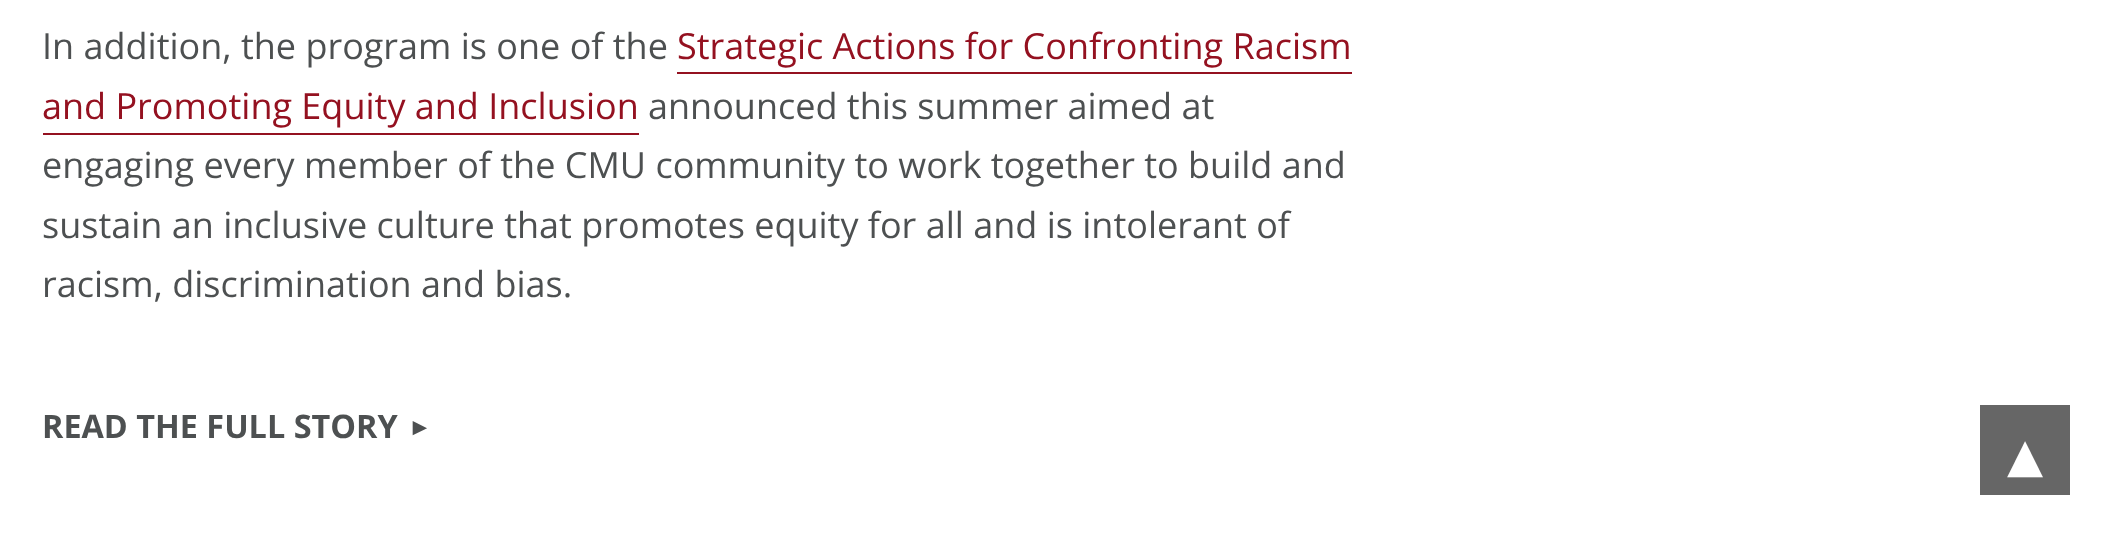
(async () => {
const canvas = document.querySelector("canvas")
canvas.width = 2111
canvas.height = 536
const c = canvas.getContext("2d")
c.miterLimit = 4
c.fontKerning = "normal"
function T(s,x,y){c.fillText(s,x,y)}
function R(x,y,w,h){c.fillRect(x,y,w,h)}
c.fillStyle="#fff"
R(0,0,2111,536)
c.font="36px Open Sans"
c.fillStyle="#4d5051"
T("In addition, the program is one of the",42,59)
c.fillStyle="#941120"
T("Strategic Actions for Confronting Racism",677,59)
R(677,72,675,2)
T("and Promoting Equity and Inclusion",42,119)
R(43,133,596,2)
c.fillStyle="#4d5051"
T("announced this summer aimed at",648,119)
T("engaging every member of the CMU community to work together to build and",42,178)
T("sustain an inclusive culture that promotes equity for all and is intolerant of",42,238)
T("racism, discrimination and bias.",42,297)
c.font="bold 32.4px Open Sans"
T("READ THE FULL STORY",42,438)
c.font="bold 24px Liberation Sans"
T("►",408,435)
c.fillStyle="#666"
R(1980,405,90,90)
c.font="72px DejaVu Sans"
c.fillStyle="#fff"
T("▴",2007,478)
})()
